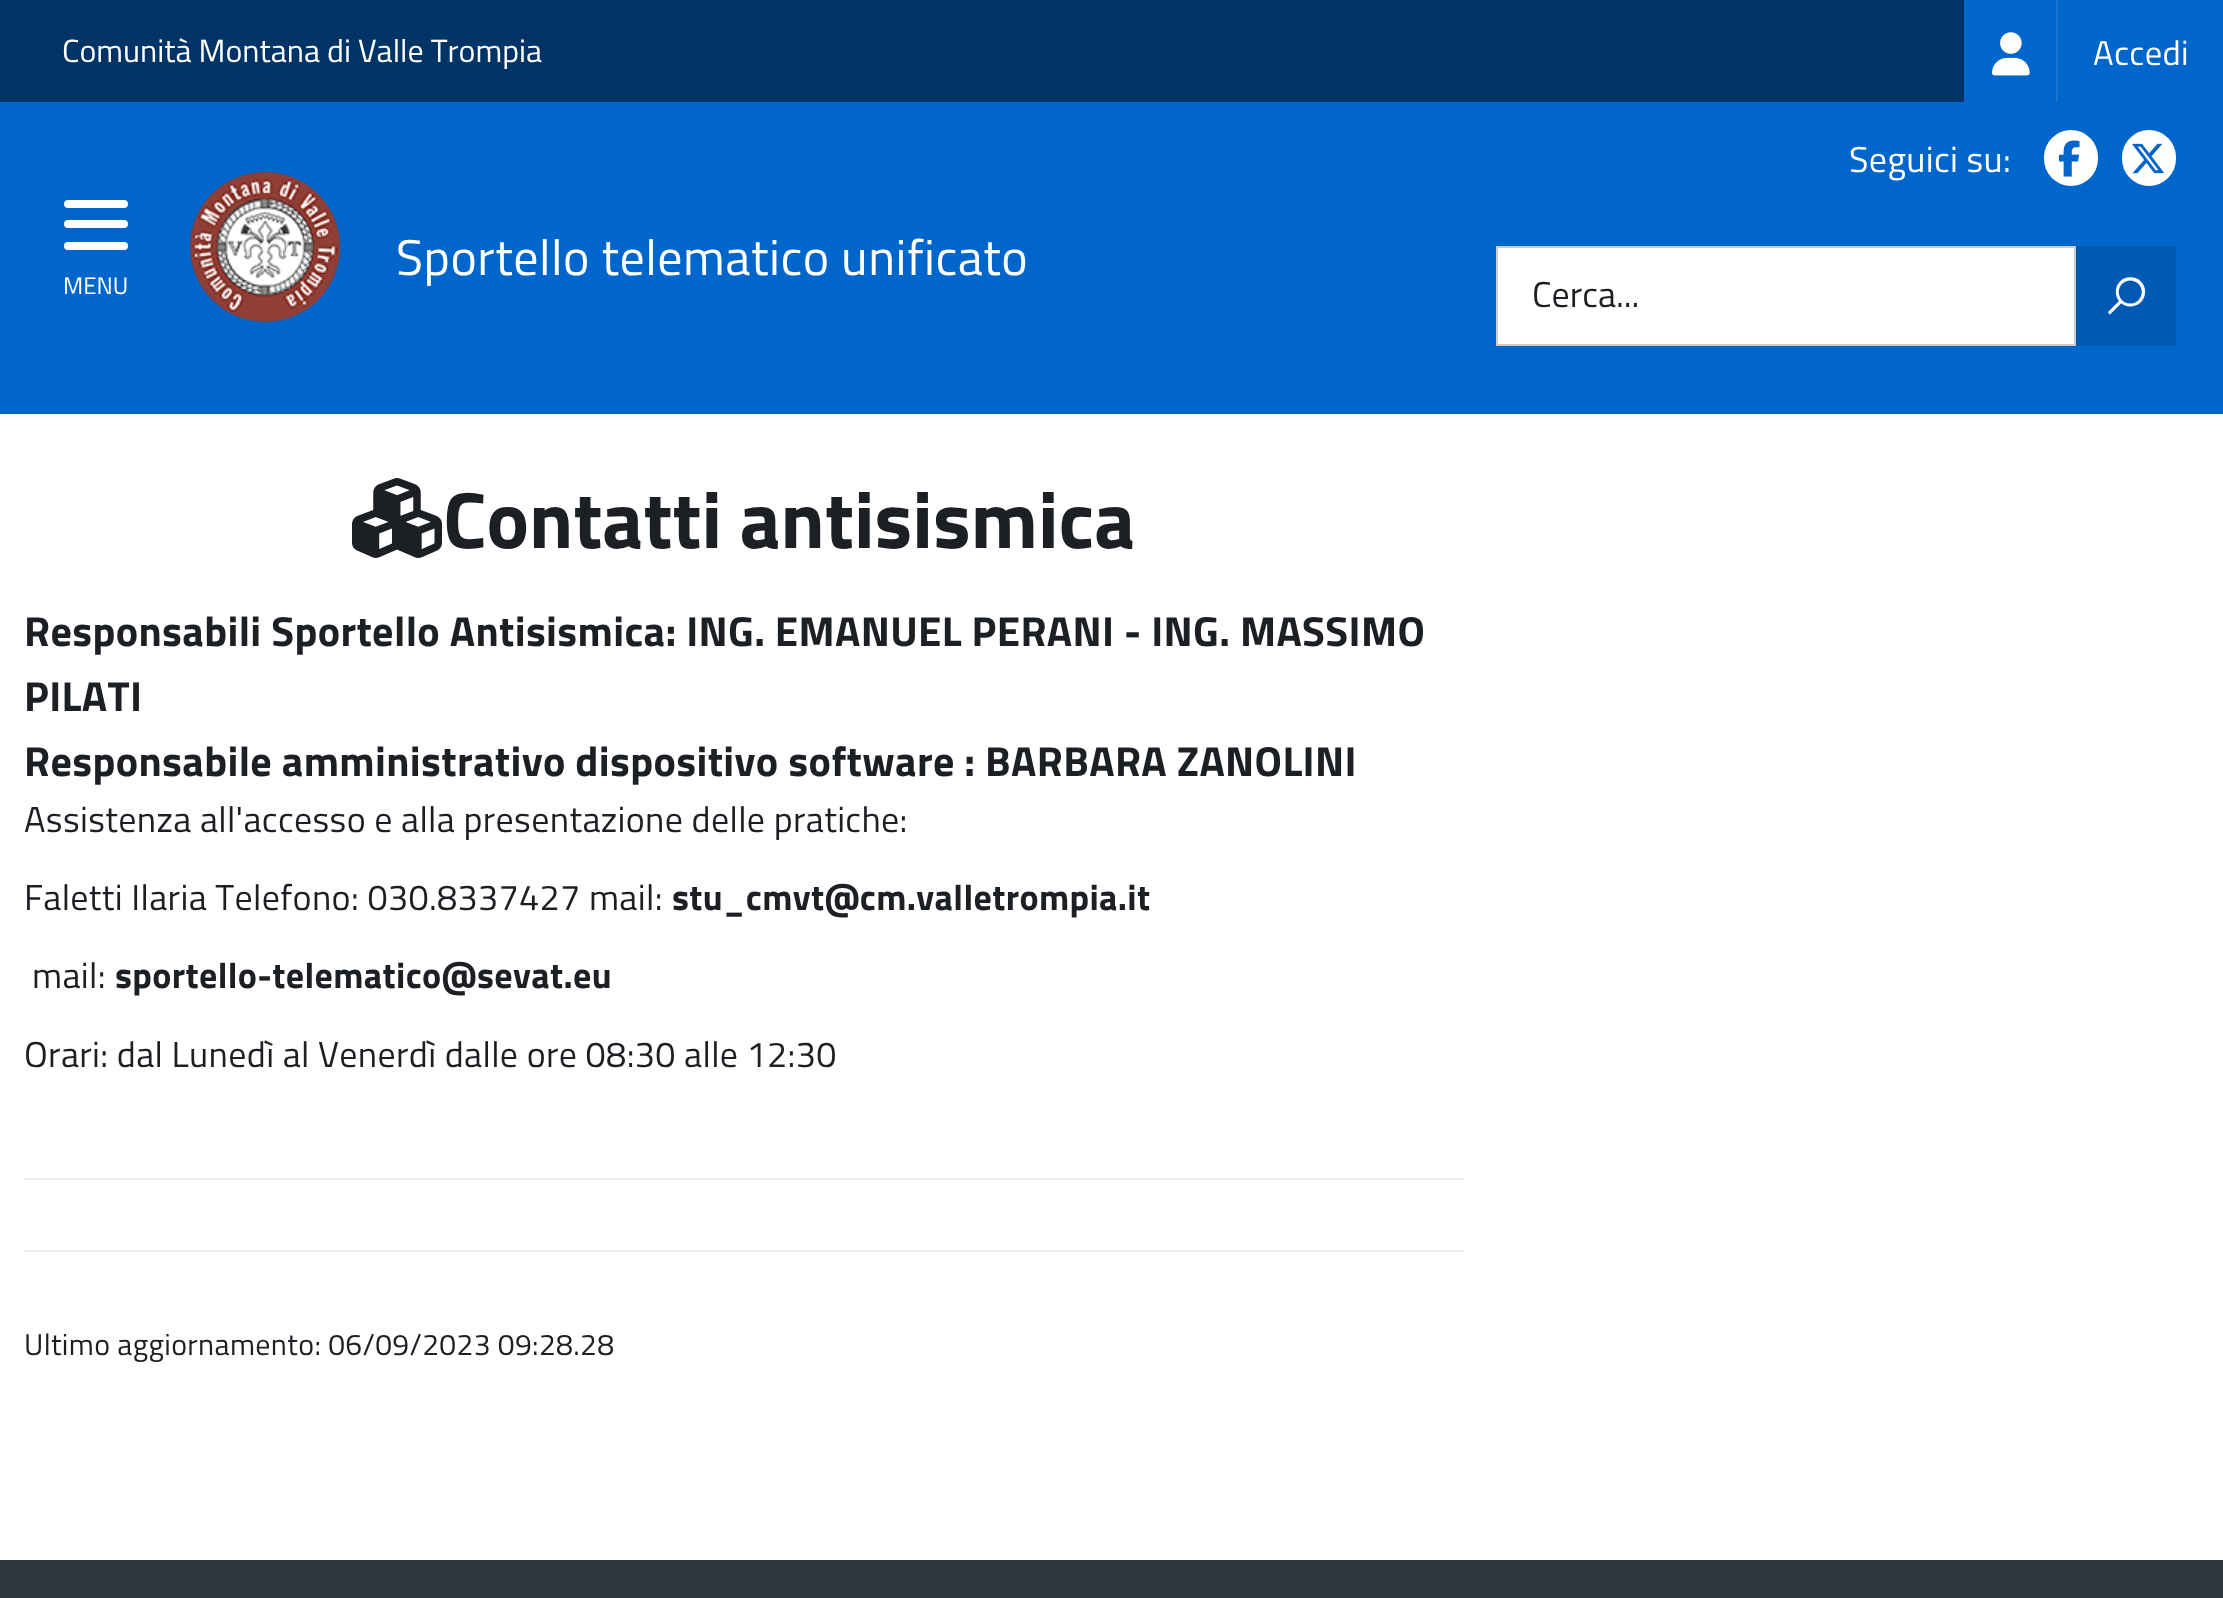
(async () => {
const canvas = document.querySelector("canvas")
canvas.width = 2223
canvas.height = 1598
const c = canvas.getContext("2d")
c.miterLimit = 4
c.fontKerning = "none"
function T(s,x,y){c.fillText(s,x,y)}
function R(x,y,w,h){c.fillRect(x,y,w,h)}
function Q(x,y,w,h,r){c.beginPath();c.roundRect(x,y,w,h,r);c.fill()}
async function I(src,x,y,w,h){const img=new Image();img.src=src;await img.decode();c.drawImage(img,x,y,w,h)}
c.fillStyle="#fff"
R(0,0,2223,1598)
c.fillStyle="#036"
R(0,0,1964,102)
c.font="32px Titillium Web"
c.fillStyle="#fff"
T("Comunità Montana di Valle Trompia",62,62)
c.fillStyle="#06c"
R(1964,0,92,102)
c.fillStyle="#1a75d1"
R(2056,0,2,102)
await I("1.png",1992,32,38,44)
c.fillStyle="#06c"
R(2058,0,165,102)
c.letterSpacing="0.35px"
c.font="34.5px Titillium Web"
c.fillStyle="#fff"
T("Accedi",2093,65)
c.fillStyle="#06c"
R(0,102,2223,312)
c.fillStyle="#fff"
Q(64,220,64,8,4)
Q(64,200,64,8,4)
Q(64,242,64,8,4)
c.letterSpacing="0px"
c.font="24px Titillium Web"
T("MENU",63,294)
await I("2.png",190,172,151,151)
c.letterSpacing="0.5px"
c.font="50px Titillium Web"
T("Sportello telematico unificato",396,275)
c.letterSpacing="0.35px"
c.font="36px Titillium Web"
T("Seguici su:",1849,172)
Q(2044,130,54,56,27)
await I("3.png",2059,140,21,37)
Q(2122,130,54,56,27)
await I("4.png",2132,143,33,31)
c.beginPath()
c.rect(1497,247,578,98)
c.fill()
c.strokeStyle="#ccc"
c.lineWidth=2
c.stroke()
c.fillStyle="#0059b3"
R(2076,246,100,100)
c.letterSpacing="0px"
c.font="bold 36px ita"
c.fillStyle="#fff"
T("🔍",2108,312)
c.font="36px Titillium Web"
c.fillStyle="#1c2024"
T("Cerca...",1532,307)
await I("5.png",352,478,90,80)
c.font="bold 80px Titillium Web"
T("Contatti antisismica",443,548)
c.letterSpacing="0.35px"
c.font="bold 42.1px Titillium Web"
T("Responsabili Sportello Antisismica: ING. EMANUEL PERANI - ING. MASSIMO",24,646)
T("PILATI",24,711)
T("Responsabile amministrativo dispositivo software : BARBARA ZANOLINI",24,776)
c.font="36px Titillium Web"
T("Assistenza all'accesso e alla presentazione delle pratiche:",24,832)
T("Faletti Ilaria Telefono: 030.8337427 mail:",24,910)
c.font="bold 36px Titillium Web"
T("stu_cmvt@cm.valletrompia.it",672,910)
c.font="36px Titillium Web"
T("mail:",32,988)
c.font="bold 36px Titillium Web"
T("sportello-telematico@sevat.eu",115,988)
c.font="36px Titillium Web"
T("Orari: dal Lunedì al Venerdì dalle ore 08:30 alle 12:30",24,1067)
c.fillStyle="#ececec"
R(24,1178,1440,2)
R(24,1250,1440,2)
c.font="30px Titillium Web"
c.fillStyle="#1c2024"
T("Ultimo aggiornamento: 06/09/2023 09:28.28",24,1355)
c.fillStyle="#30373d"
R(0,1560,2223,38)
})()
